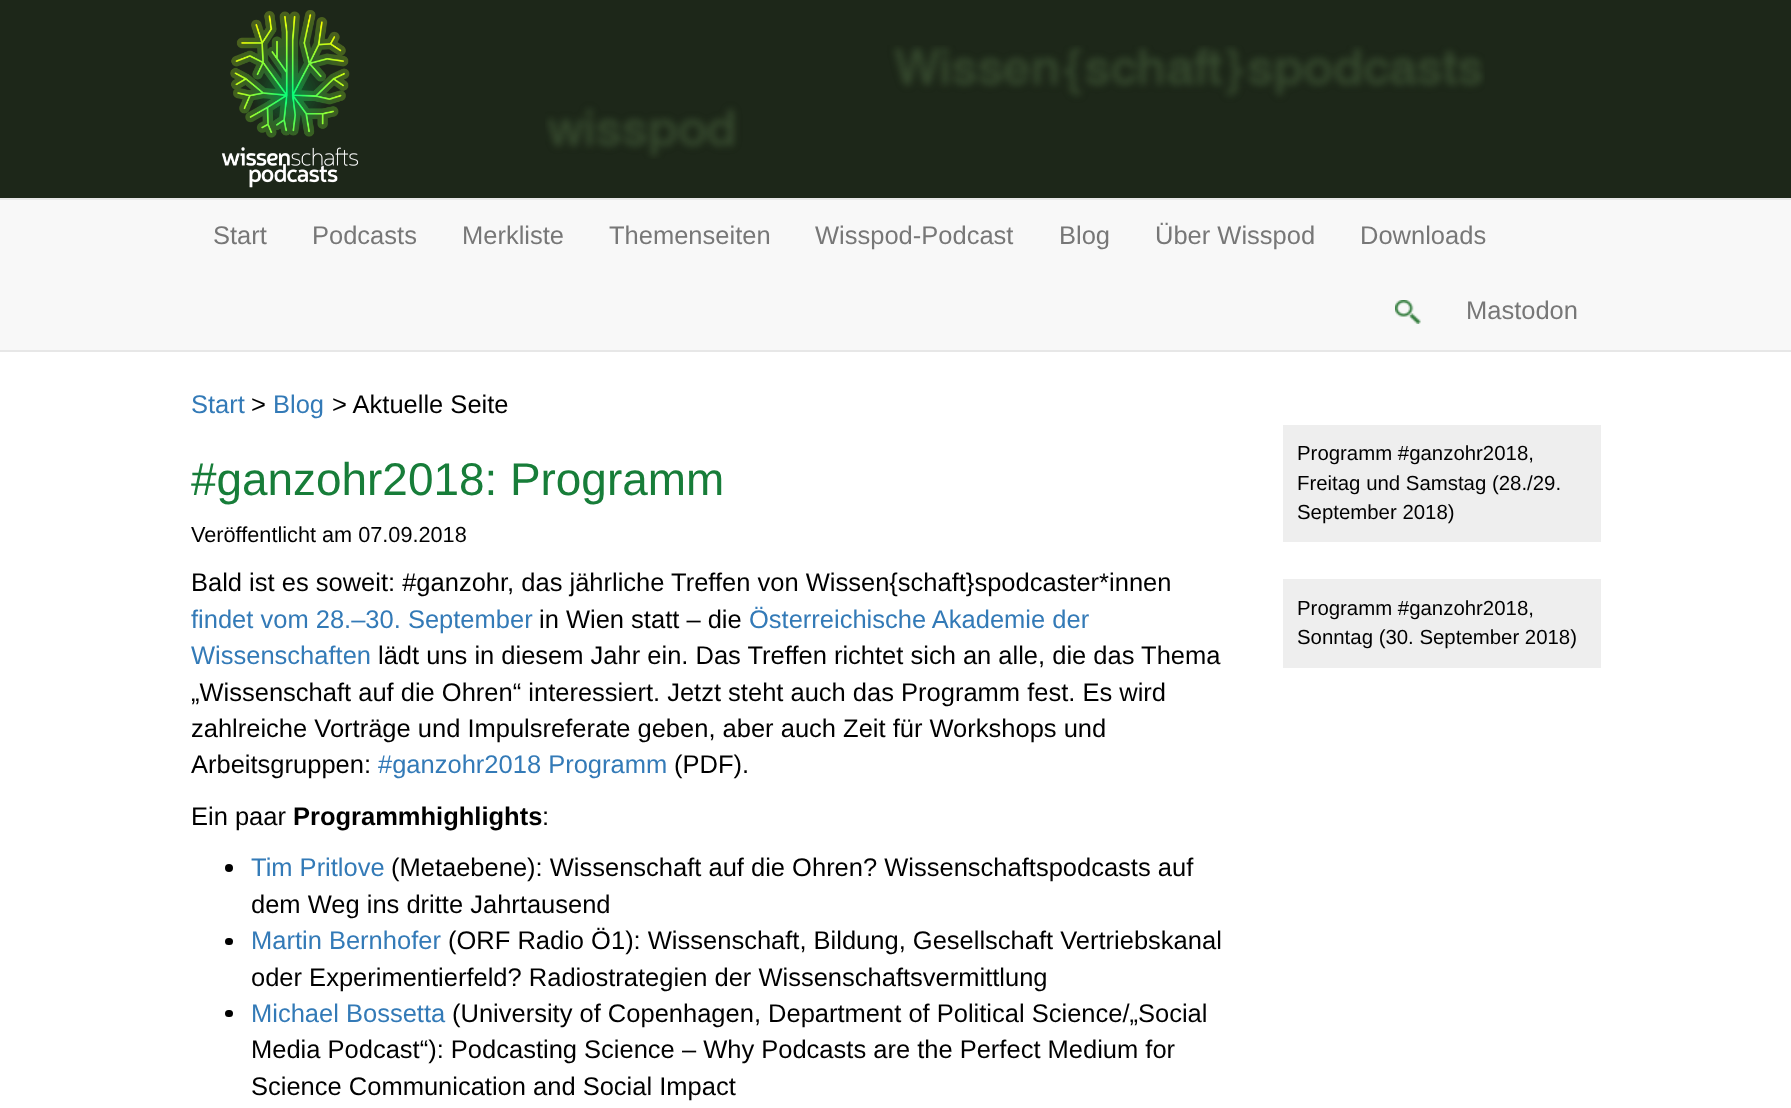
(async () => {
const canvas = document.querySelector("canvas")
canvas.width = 1791
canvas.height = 1108
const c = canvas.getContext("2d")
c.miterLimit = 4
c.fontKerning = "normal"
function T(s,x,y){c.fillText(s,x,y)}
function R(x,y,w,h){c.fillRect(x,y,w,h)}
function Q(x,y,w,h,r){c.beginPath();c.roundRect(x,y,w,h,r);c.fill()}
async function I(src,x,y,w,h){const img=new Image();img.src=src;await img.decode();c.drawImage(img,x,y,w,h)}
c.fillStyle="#fff"
R(0,0,1791,1108)
c.fillStyle="#1d2719"
R(0,0,1791,198)
await I("1.png",545,45,940,114)
await I("2.png",221,10,138,178)
c.fillStyle="#f8f8f8"
R(0,200,1791,150)
c.fillStyle="#e7e7e7"
R(0,198,1791,2)
R(0,350,1791,2)
c.font="25.5px Liberation Sans"
c.fillStyle="#777"
T("Start",213,244)
T("Podcasts",312,244)
T("Merkliste",462,244)
T("Themenseiten",609,244)
T("Wisspod-Podcast",815,244)
T("Blog",1059,244)
T("Über Wisspod",1155,244)
T("Downloads",1360,244)
await I("3.png",1395,300,26,24)
T("Mastodon",1466,319)
c.fillStyle="#337ab7"
T("Start",191,413)
c.fillStyle="#000"
T(">",251,413)
c.fillStyle="#337ab7"
T("Blog",273,413)
c.fillStyle="#000"
T("> Aktuelle Seite",332,413)
c.font="45.9px Liberation Sans"
c.fillStyle="#177d39"
T("#ganzohr2018: Programm",191,495)
c.font="21.7px Liberation Sans"
c.fillStyle="#000"
T("Veröffentlicht am 07.09.2018",191,542)
c.font="25.5px Liberation Sans"
T("Bald ist es soweit: #ganzohr, das jährliche Treffen von Wissen{schaft}spodcaster*innen",191,591)
c.fillStyle="#337ab7"
T("findet vom 28.–30. September",191,628)
c.fillStyle="#000"
T("in Wien statt – die",539,628)
c.fillStyle="#337ab7"
T("Österreichische Akademie der",749,628)
T("Wissenschaften",191,664)
c.fillStyle="#000"
T("lädt uns in diesem Jahr ein. Das Treffen richtet sich an alle, die das Thema",378,664)
T("„Wissenschaft auf die Ohren“ interessiert. Jetzt steht auch das Programm fest. Es wird",191,701)
T("zahlreiche Vorträge und Impulsreferate geben, aber auch Zeit für Workshops und",191,737)
T("Arbeitsgruppen:",191,773)
c.fillStyle="#337ab7"
T("#ganzohr2018 Programm",378,773)
c.fillStyle="#000"
T("(PDF).",674,773)
T("Ein paar",191,825)
c.font="bold 25.5px Liberation Sans"
T("Programmhighlights",293,825)
c.font="25.5px Liberation Sans"
T(":",542,825)
c.beginPath()
c.arc(229,868,4,0,7)
c.fill()
c.fillStyle="#337ab7"
T("Tim Pritlove",251,876)
c.fillStyle="#000"
T("(Metaebene): Wissenschaft auf die Ohren? Wissenschaftspodcasts auf",391,876)
T("dem Weg ins dritte Jahrtausend",251,913)
Q(225,938,8,7,3.5)
c.fillStyle="#337ab7"
T("Martin Bernhofer",251,949)
c.fillStyle="#000"
T("(ORF Radio Ö1): Wissenschaft, Bildung, Gesellschaft Vertriebskanal",448,949)
T("oder Experimentierfeld? Radiostrategien der Wissenschaftsvermittlung",251,986)
Q(225,1010,8,7,3.5)
c.fillStyle="#337ab7"
T("Michael Bossetta",251,1022)
c.fillStyle="#000"
T("(University of Copenhagen, Department of Political Science/„Social",452,1022)
T("Media Podcast“): Podcasting Science – Why Podcasts are the Perfect Medium for",251,1058)
T("Science Communication and Social Impact",251,1095)
c.fillStyle="#eee"
R(1283,425,318,117)
c.font="20.4px Liberation Sans"
c.fillStyle="#000"
T("Programm #ganzohr2018,",1297,460)
T("Freitag und Samstag (28./29.",1297,490)
T("September 2018)",1297,519)
c.fillStyle="#eee"
R(1283,579,318,89)
c.fillStyle="#000"
T("Programm #ganzohr2018,",1297,615)
T("Sonntag (30. September 2018)",1297,644)
})()
